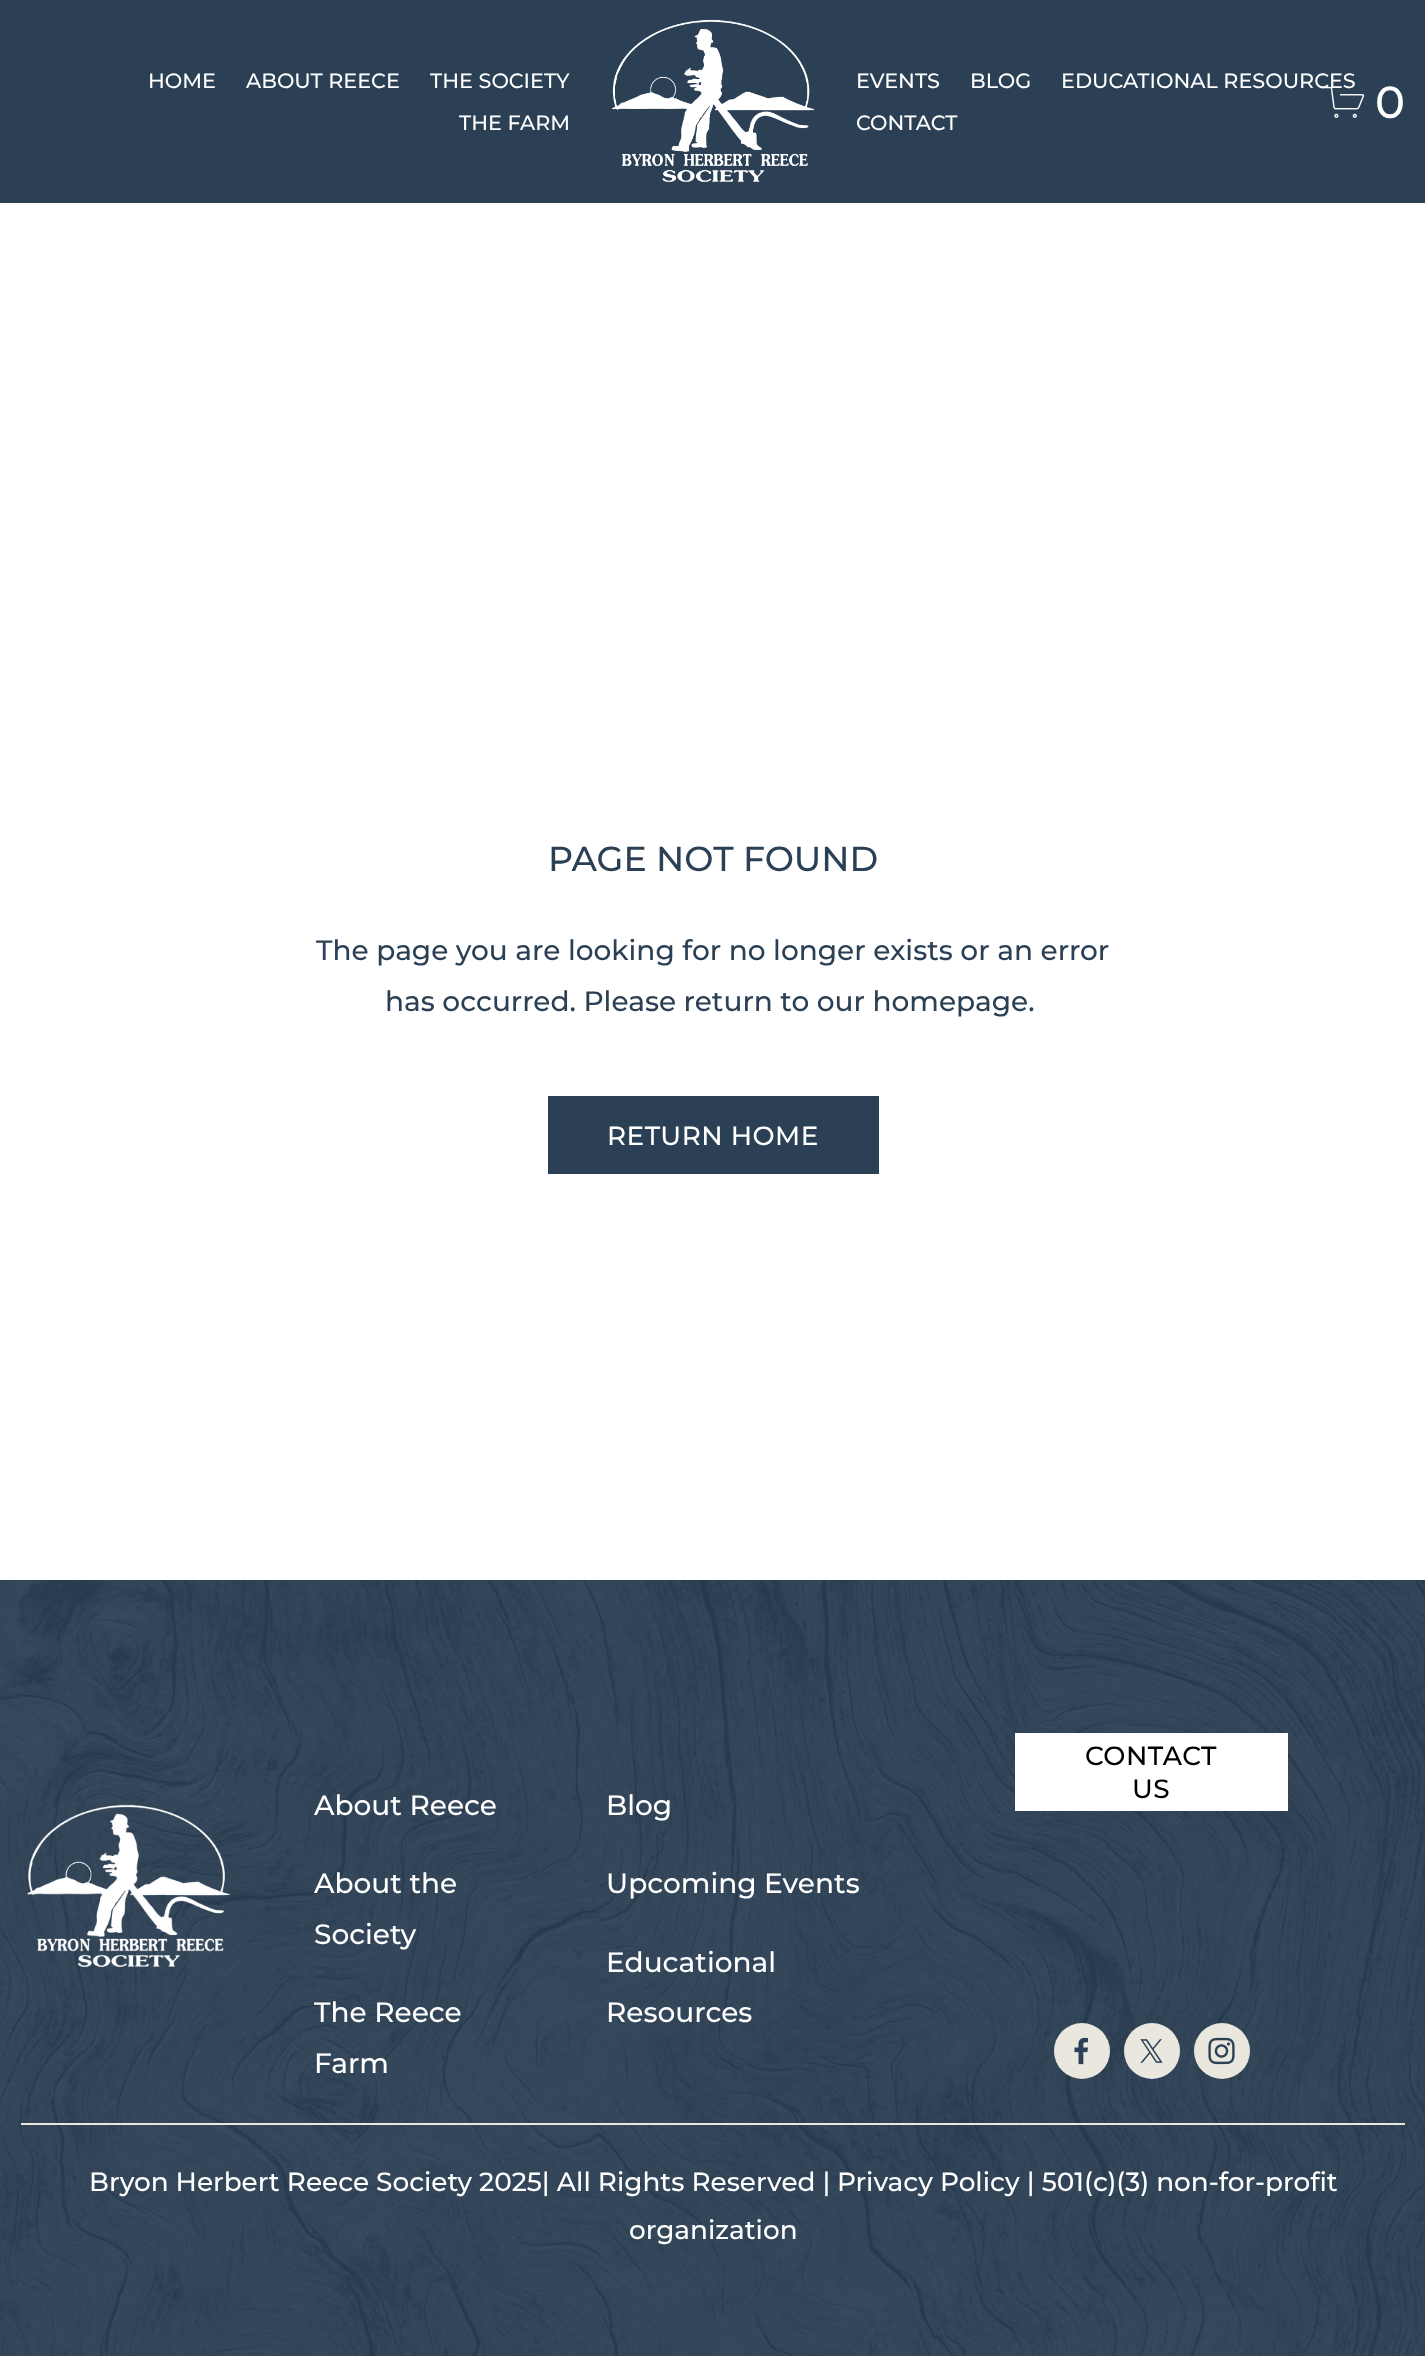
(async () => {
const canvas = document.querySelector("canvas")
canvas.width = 1425
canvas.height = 2356
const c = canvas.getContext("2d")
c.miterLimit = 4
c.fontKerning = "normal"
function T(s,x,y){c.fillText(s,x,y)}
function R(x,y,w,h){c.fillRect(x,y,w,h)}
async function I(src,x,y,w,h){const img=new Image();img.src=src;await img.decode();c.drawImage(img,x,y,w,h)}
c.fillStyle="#fff"
R(0,0,1425,2356)
c.fillStyle="#2b4055"
R(0,0,1425,203)
c.font="500 20.75px Montserrat"
c.fillStyle="#fff"
T("HOME",148,88)
T("ABOUT REECE",246,88)
T("THE SOCIETY",430,88)
T("THE FARM",459,130)
await I("1.png",611,19,204,163)
T("EVENTS",856,88)
T("BLOG",970,88)
T("EDUCATIONAL RESOURCES",1061,88)
T("CONTACT",856,130)
await I("2.png",1323,86,42,32)
c.font="500 45px Montserrat"
T("0",1375,118)
c.font="500 34.75px Montserrat"
c.fillStyle="#2b4055"
T("PAGE NOT FOUND",548,871)
c.font="500 28px Montserrat"
T("The page you are looking for no longer exists or an error",316,960)
T("has occurred. Please return to our homepage.",385,1011)
R(548,1096,331,78)
c.letterSpacing="0.5px"
c.font="500 26.3px Montserrat"
c.fillStyle="#fff"
T("RETURN HOME",607,1145)
c.fillStyle="#2b4055"
R(0,1580,1425,1)
await I("3.png",0,1580,1425,776)
c.fillStyle="#fff"
R(1015,1733,273,78)
c.fillStyle="#000"
T("CONTACT",1085,1765)
T("US",1132,1798)
await I("4.png",27,1804,204,163)
c.letterSpacing="0px"
c.font="500 28px Montserrat"
c.fillStyle="#fff"
T("About Reece",314,1815)
T("About the",314,1893)
T("Society",314,1944)
T("The Reece",314,2022)
T("Farm",314,2073)
T("Blog",606,1815)
T("Upcoming Events",606,1893)
T("Educational",606,1972)
T("Resources",606,2022)
c.fillStyle="#e9e7de"
c.beginPath()
c.arc(1082,2051,28,0,7)
c.fill()
await I("5.png",1074,2037,15,28)
c.beginPath()
c.arc(1152,2051,28,0,7)
c.fill()
await I("6.png",1140,2039,23,24)
c.beginPath()
c.arc(1222,2051,28,0,7)
c.fill()
await I("7.png",1208,2037,27,28)
R(21,2123,1384,2)
c.font="500 26.3px Montserrat"
c.fillStyle="#fff"
T("Bryon Herbert Reece Society 2025| All Rights Reserved |",89,2191)
T("Privacy Policy | 501(c)(3) non-for-profit",837,2191)
T("organization",629,2239)
})()
